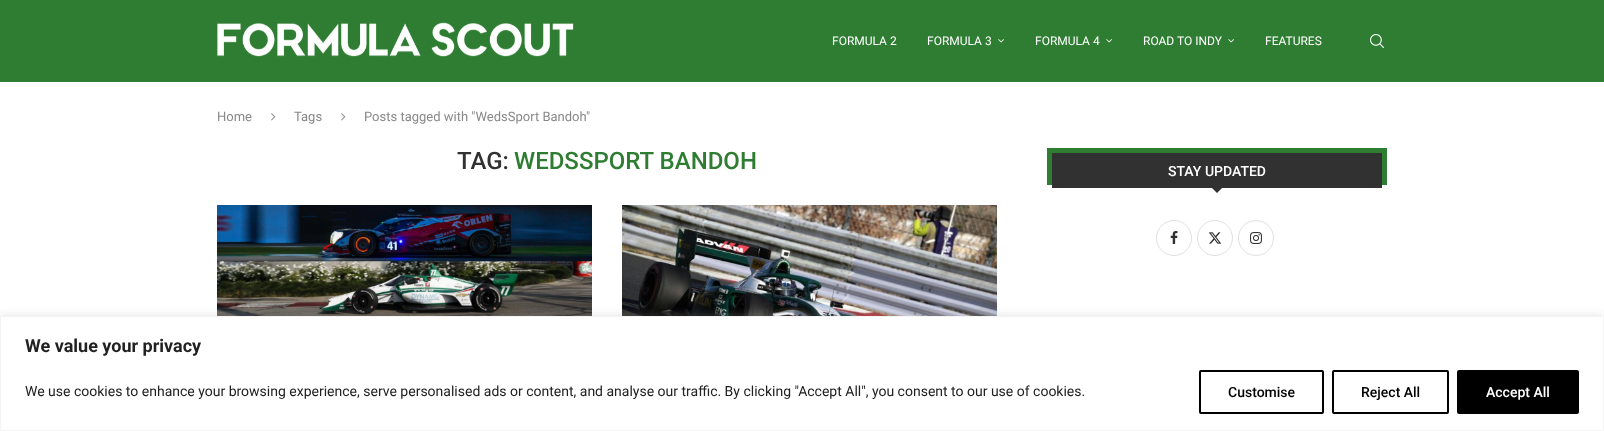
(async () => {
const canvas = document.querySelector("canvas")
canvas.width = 1604
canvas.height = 431
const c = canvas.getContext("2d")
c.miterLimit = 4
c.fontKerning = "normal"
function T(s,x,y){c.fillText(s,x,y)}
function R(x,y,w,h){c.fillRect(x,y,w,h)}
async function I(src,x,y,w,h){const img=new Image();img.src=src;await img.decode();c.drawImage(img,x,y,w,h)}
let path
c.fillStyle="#fff"
R(0,0,1604,431)
c.fillStyle="#2e7d32"
R(0,0,1604,82)
await I("1.png",217,22,357,35)
c.font="12px Roboto"
c.fillStyle="#fff"
T("FORMULA 2",832,45)
T("FORMULA 3",927,45)
await I("2.png",998,39,6,4)
T("FORMULA 4",1035,45)
await I("3.png",1106,39,6,4)
T("ROAD TO INDY",1143,45)
await I("4.png",1228,39,6,4)
T("FEATURES",1265,45)
await I("5.png",1370,34,14,14)
c.font="13px Roboto"
c.fillStyle="#888"
T("Home",217,121)
await I("6.png",271,113,5,8)
T("Tags",294,121)
await I("6.png",341,113,5,8)
T("Posts tagged with \"WedsSport Bandoh\"",364,121)
c.font="500 24px Roboto"
c.fillStyle="#313131"
T("TAG:",457,169)
c.fillStyle="#2e7d32"
T("WEDSSPORT BANDOH",514,169)
await I("7.png",217,205,375,111)
await I("8.png",622,205,375,111)
R(1047,148,340,37)
c.fillStyle="#313131"
R(1052,153,330,35)
c.font="500 14px Roboto"
c.fillStyle="#fff"
T("STAY UPDATED",1168,176)
c.fillStyle="#313131"
path = new Path2D("M1211 187h12l-6 6z")
c.fill(path)
c.beginPath()
c.arc(1174,238,17.5,0,7)
c.strokeStyle="#e0e0e0"
c.stroke()
await I("9.png",1170,231,8,13)
c.beginPath()
c.arc(1215,238,17.5,0,7)
c.stroke()
await I("10.png",1208,232,14,12)
c.beginPath()
c.arc(1256,238,17.5,0,7)
c.stroke()
await I("11.png",1250,232,12,12)
c.fillStyle="#acabab4d"
c.filter="blur(5px)"
c.beginPath()
c.rect(0,315,1604,115)
c.fill()
c.filter="none"
c.fillStyle="#fff"
c.beginPath()
c.rect(.5,316.5,1603,114)
c.fill()
c.strokeStyle="#f4f4f4"
c.stroke()
c.font="bold 18px Roboto"
c.fillStyle="#212121"
T("We value your privacy",25,352)
c.font="14px Roboto"
T("We use cookies to enhance your browsing experience, serve personalised ads or content, and analyse our traffic. By clicking \"Accept All\", you consent to our use of cookies.",25,396)
c.beginPath()
c.roundRect(1200,371,123,42,1)
c.strokeStyle="#000"
c.lineWidth=2
c.stroke()
c.font="500 14px Roboto"
c.fillStyle="#000"
T("Customise",1228,397)
c.beginPath()
c.roundRect(1333,371,115,42,1)
c.stroke()
T("Reject All",1361,397)
c.beginPath()
c.roundRect(1458,371,120,42,1)
c.fill()
c.stroke()
c.fillStyle="#fff"
T("Accept All",1486,397)
})()
